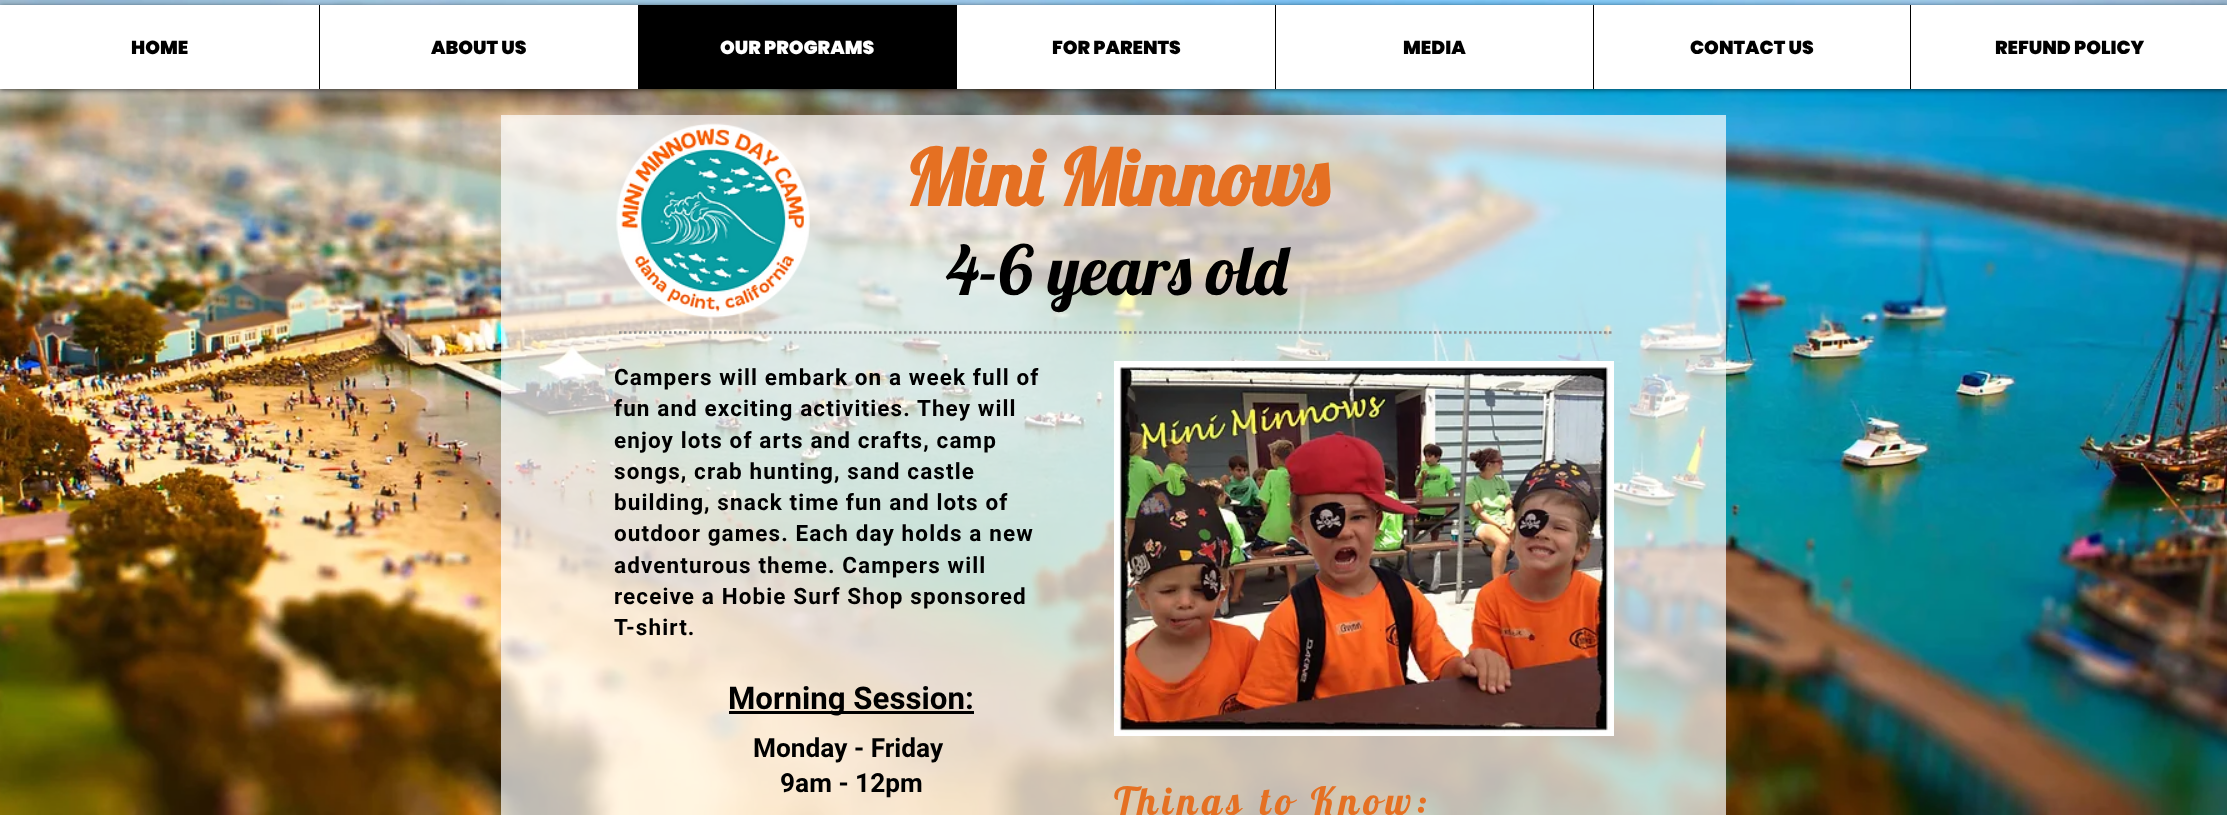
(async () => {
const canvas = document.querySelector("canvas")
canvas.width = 2227
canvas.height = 815
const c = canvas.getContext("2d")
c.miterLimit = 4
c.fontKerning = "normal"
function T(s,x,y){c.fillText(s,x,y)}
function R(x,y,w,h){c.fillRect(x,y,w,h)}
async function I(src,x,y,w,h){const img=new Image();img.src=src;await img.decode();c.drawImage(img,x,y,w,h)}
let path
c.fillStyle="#fff"
R(0,0,2227,815)
await I("1.png",0,0,2227,815)
c.fillStyle="#00000099"
c.filter="blur(2.5px)"
c.beginPath()
c.rect(0,6,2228,84)
c.fill()
c.filter="none"
c.fillStyle="#fff"
R(0,5,2227,84)
c.font="900 18.75px Poppins"
c.fillStyle="#000"
T("HOME",131,54)
R(319,5,1,84)
T("ABOUT US",431,54)
R(638,5,319,84)
c.fillStyle="#fff"
T("OUR PROGRAMS",720,54)
c.fillStyle="#000"
T("FOR PARENTS",1052,54)
R(1275,5,1,84)
T("MEDIA",1403,54)
R(1593,5,1,84)
T("CONTACT US",1690,54)
R(1910,5,1,84)
T("REFUND POLICY",1995,54)
c.fillStyle="#ffffffb3"
R(501,115,1225,700)
await I("2.png",616,123,194,195)
c.font="bold 77.5px Lobster"
c.fillStyle="#e57022"
T("Mini Minnows",905,206)
c.font="68.75px Lobster"
c.fillStyle="#000"
T("4-6 years old",946,295)
path = new Path2D("M619 332.5h993.5")
c.strokeStyle="#909090"
c.lineWidth=2.5
c.setLineDash([2.5,2.5])
c.stroke(path)
c.letterSpacing="1.1px"
c.font="bold 22.5px Roboto"
T("Campers will embark on a week full of",614,385)
T("fun and exciting activities. They will",614,416)
T("enjoy lots of arts and crafts, camp",614,448)
T("songs, crab hunting, sand castle",614,479)
T("building, snack time fun and lots of",614,510)
T("outdoor games. Each day holds a new",614,541)
T("adventurous theme. Campers will",614,573)
T("receive a Hobie Surf Shop sponsored",614,604)
T("T-shirt.",614,635)
c.fillStyle="#fff"
R(1114,361,500,375)
await I("3.png",1115,367,495,366)
c.fillStyle="#000"
R(729,711,245,3)
c.letterSpacing="0px"
c.font="bold 31.25px Roboto"
T("Morning Session:",728,709)
c.font="bold 26.25px Roboto"
T("Monday - Friday",753,757)
T("9am - 12pm",780,792)
c.letterSpacing="5px"
c.font="38.75px Lobster"
c.fillStyle="#e57022"
T("Things to Know:",1114,815)
})()
